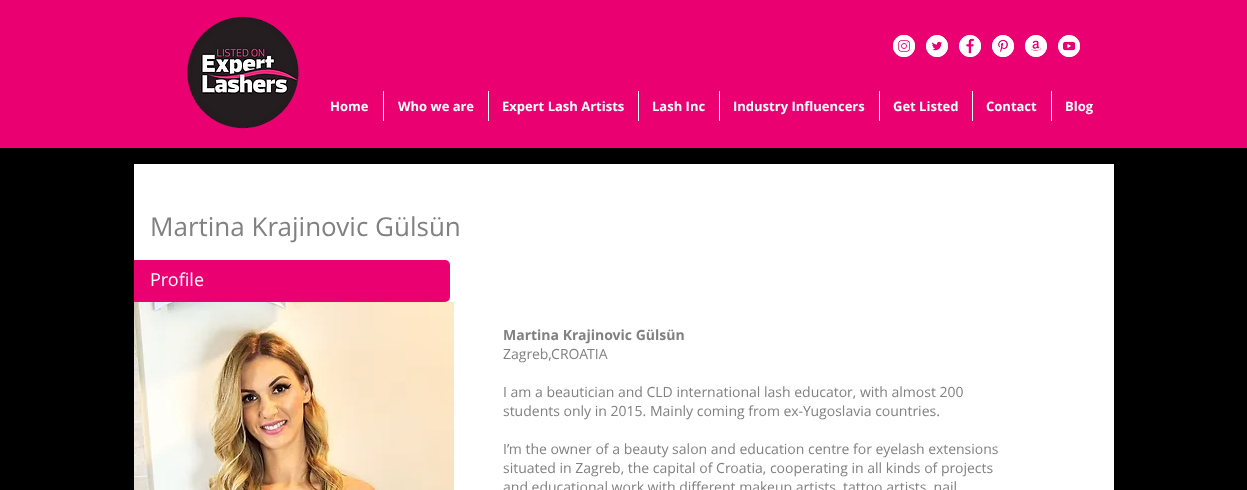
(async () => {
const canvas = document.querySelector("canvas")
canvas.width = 1247
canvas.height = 490
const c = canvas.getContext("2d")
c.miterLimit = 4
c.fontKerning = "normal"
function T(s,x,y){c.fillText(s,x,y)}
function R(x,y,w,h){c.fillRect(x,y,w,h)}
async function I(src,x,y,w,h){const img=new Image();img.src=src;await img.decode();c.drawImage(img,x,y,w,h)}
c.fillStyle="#000"
R(0,0,1247,490)
c.fillStyle="#ea0071"
R(0,0,1247,148)
await I("1.png",187,16,112,113)
await I("2.png",893,35,22,22)
await I("3.png",926,35,22,22)
await I("4.png",959,35,22,22)
await I("5.png",992,35,22,22)
await I("6.png",1025,35,22,22)
await I("7.png",1058,35,22,22)
await I("8.png",893,35,22,22)
await I("9.png",926,35,22,22)
await I("10.png",959,35,22,22)
await I("11.png",992,35,22,22)
await I("12.png",1025,35,22,22)
await I("13.png",1058,35,22,22)
c.font="bold 13px Open Sans"
c.fillStyle="#fff"
T("Home",330,111)
R(383,91,1,30)
T("Who we are",398,111)
R(488,91,1,30)
T("Expert Lash Artists",502,111)
R(638,91,1,30)
T("Lash Inc",652,111)
R(719,91,1,30)
T("Industry Influencers",733,111)
R(879,91,1,30)
T("Get Listed",893,111)
R(972,91,1,30)
T("Contact",986,111)
R(1051,91,1,30)
T("Blog",1065,111)
R(134,164,980,326)
c.font="26px Open Sans"
c.fillStyle="#818181"
T("Martina Krajinovic Gülsün",150,236)
c.fillStyle="#ea0071"
c.beginPath()
c.roundRect(134,260,316,42,[0,5,5,0])
c.fill()
c.font="18px Open Sans"
c.fillStyle="#fff"
T("Profile",150,286)
await I("14.png",134,302,320,188)
c.font="bold 14px Open Sans"
c.fillStyle="#818181"
T("Martina Krajinovic Gülsün",503,340)
c.font="14px Open Sans"
T("Zagreb,CROATIA",503,359)
T("I am a beautician and CLD international lash educator, with almost 200",503,397)
T("students only in 2015. Mainly coming from ex-Yugoslavia countries.",503,416)
T("I’m the owner of a beauty salon and education centre for eyelash extensions",503,454)
T("situated in Zagreb, the capital of Croatia, cooperating in all kinds of projects",503,473)
T("and educational work with different makeup artists, tattoo artists, nail",503,492)
})()
